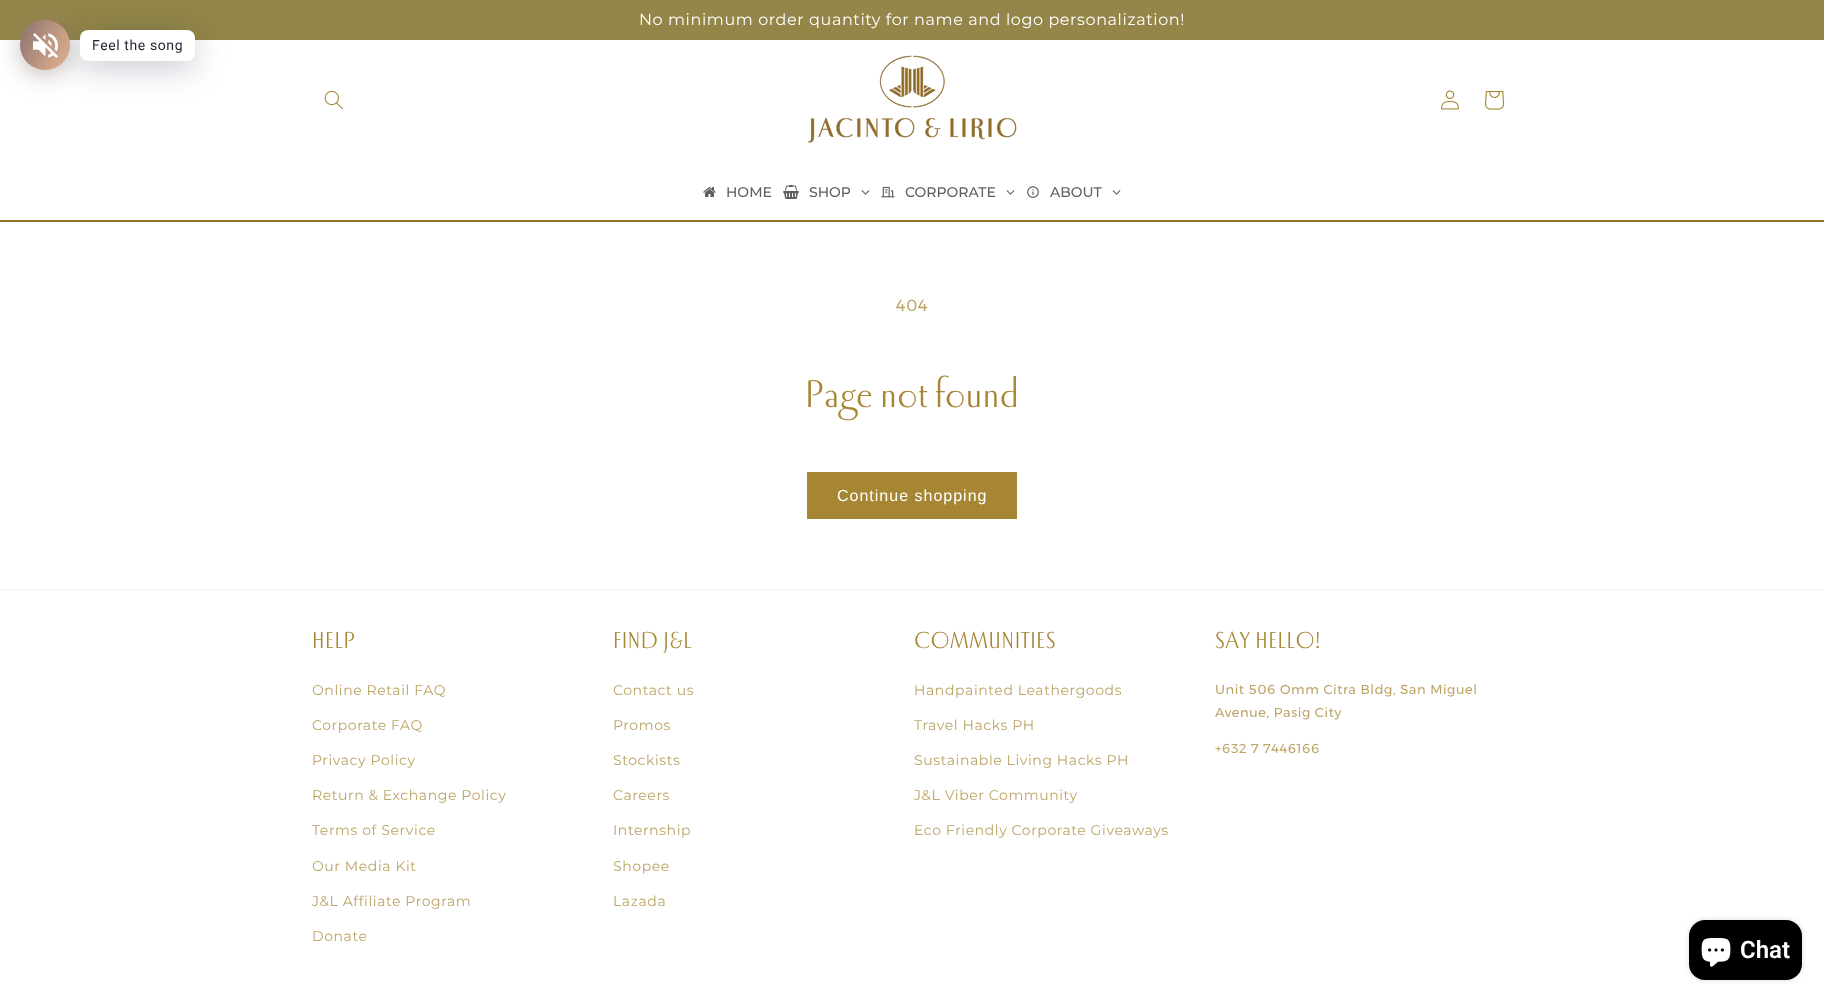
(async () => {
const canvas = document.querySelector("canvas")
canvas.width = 1824
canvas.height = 1001
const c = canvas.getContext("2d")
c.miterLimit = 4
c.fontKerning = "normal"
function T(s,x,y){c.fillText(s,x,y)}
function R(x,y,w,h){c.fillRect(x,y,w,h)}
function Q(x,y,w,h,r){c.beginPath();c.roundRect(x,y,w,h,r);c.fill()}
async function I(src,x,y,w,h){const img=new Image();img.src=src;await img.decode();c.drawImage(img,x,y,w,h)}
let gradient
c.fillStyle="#fff"
R(0,0,1824,1001)
c.fillStyle="#938648"
R(0,0,1824,40)
c.letterSpacing="0.6px"
c.font="16px 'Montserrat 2'"
c.fillStyle="#fff"
T("No minimum order quantity for name and logo personalization!",639,25)
c.fillStyle="#8a716d80"
c.filter="blur(12px)"
c.beginPath()
c.roundRect(20,24,50,50,25)
c.fill()
c.filter="none"
gradient = c.createLinearGradient(15,31,75,59)
gradient.addColorStop(0,"#8a716d")
gradient.addColorStop(1,"#e8b794")
c.fillStyle = gradient
c.beginPath()
c.arc(45,45,25,0,7)
c.fill()
c.fillStyle="#00122e3d"
c.filter="blur(16px)"
c.beginPath()
c.roundRect(80,36,115,31,8)
c.fill()
c.filter="none"
await I("1.png",33,33,25,25)
c.fillStyle="#fff"
Q(80,30,115,31,8)
c.font="14px Roboto"
c.fillStyle="#1e2433"
T("Feel the song",92,50)
c.fillStyle="#926f2b"
R(0,220,1824,2)
await I("2.png",324,90,19,20)
await I("3.png",808,55,209,88)
await I("4.png",1441,90,18,20)
await I("5.png",1485,91,20,19)
await I("6.png",703,187,13,10)
c.letterSpacing="0px"
c.font="500 14px Montserrat"
c.fillStyle="#5e5e5e"
T("HOME",726,197)
await I("7.png",783,185,16,14)
T("SHOP",809,197)
await I("8.png",861,190,9,5)
await I("9.png",881,186,14,12)
T("CORPORATE",905,197)
await I("8.png",1006,190,9,5)
await I("10.png",1027,186,12,12)
T("ABOUT",1050,197)
await I("8.png",1112,190,9,5)
c.letterSpacing="0.6px"
c.font="16px Montserrat"
c.fillStyle="#bca466"
T("404",896,311)
c.font="40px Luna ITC"
c.fillStyle="#a68633"
T("Page not found",805,407)
R(807,472,210,47)
c.letterSpacing="1px"
c.font="16px Liberation Sans"
c.fillStyle="#fff"
T("Continue shopping",837,501)
c.fillStyle="#f8f5ef"
R(0,589,1824,1)
c.letterSpacing="0.6px"
c.font="24px Luna ITC"
c.fillStyle="#a68633"
T("HELP",312,648)
c.font="14px 'Montserrat 2'"
c.fillStyle="#bca466"
T("Online Retail FAQ",312,695)
T("Corporate FAQ",312,730)
T("Privacy Policy",312,765)
T("Return & Exchange Policy",312,800)
T("Terms of Service",312,835)
T("Our Media Kit",312,871)
T("J&L Affiliate Program",312,906)
T("Donate",312,941)
c.font="24px Luna ITC"
c.fillStyle="#a68633"
T("FIND J&L",613,648)
c.font="14px 'Montserrat 2'"
c.fillStyle="#bca466"
T("Contact us",613,695)
T("Promos",613,730)
T("Stockists",613,765)
T("Careers",613,800)
T("Internship",613,835)
T("Shopee",613,871)
T("Lazada",613,906)
c.font="24px Luna ITC"
c.fillStyle="#a68633"
T("COMMUNITIES",914,648)
c.font="14px 'Montserrat 2'"
c.fillStyle="#bca466"
T("Handpainted Leathergoods",914,695)
T("Travel Hacks PH",914,730)
T("Sustainable Living Hacks PH",914,765)
T("J&L Viber Community",914,800)
T("Eco Friendly Corporate Giveaways",914,835)
c.font="24px Luna ITC"
c.fillStyle="#a68633"
T("SAY HELLO!",1215,648)
c.font="13px Montserrat"
c.fillStyle="#bca466"
T("Unit 506 Omm Citra Bldg, San Miguel",1215,694)
T("Avenue, Pasig City",1215,717)
T("+632 7 7446166",1215,753)
c.fillStyle="#00000026"
c.filter="blur(2.5px)"
c.beginPath()
c.roundRect(1689,920,113,60,16)
c.fill()
c.filter="none"
c.fillStyle="#000"
Q(1689,920,113,60,16)
await I("11.png",1701,938,30,29)
c.letterSpacing="0px"
c.font="600 24px Roboto"
c.fillStyle="#fff"
T("Chat",1740,958)
})()
